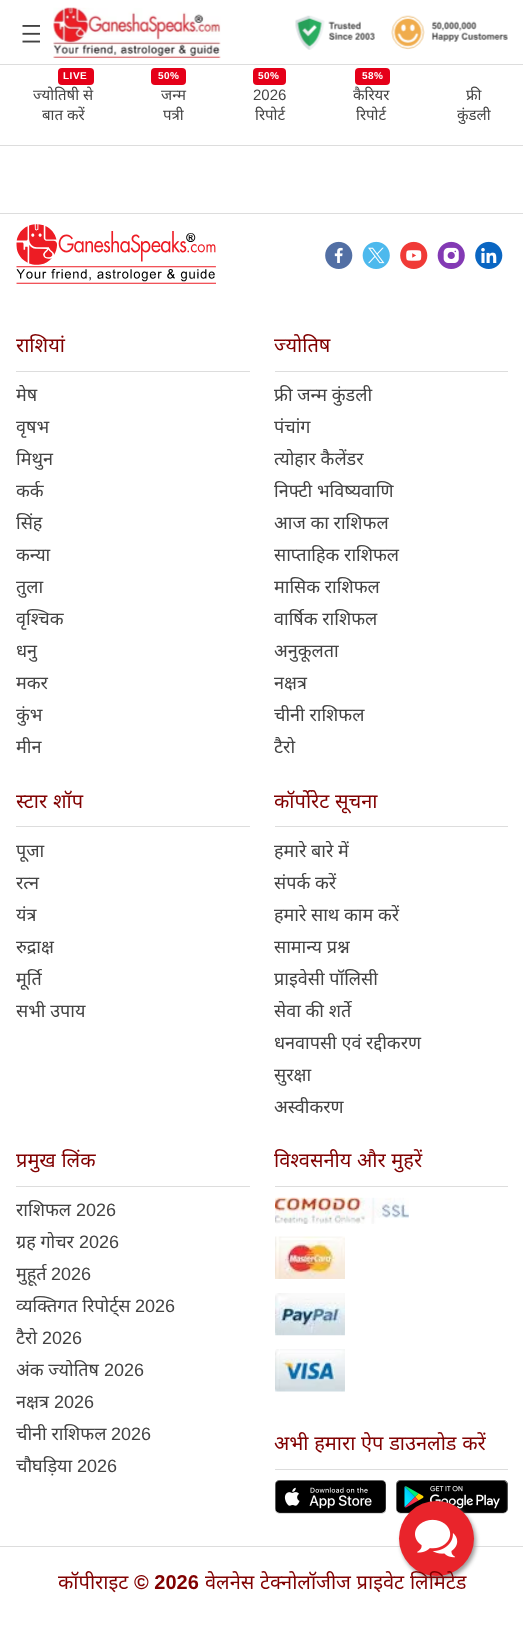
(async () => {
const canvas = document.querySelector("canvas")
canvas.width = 523
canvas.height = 1631
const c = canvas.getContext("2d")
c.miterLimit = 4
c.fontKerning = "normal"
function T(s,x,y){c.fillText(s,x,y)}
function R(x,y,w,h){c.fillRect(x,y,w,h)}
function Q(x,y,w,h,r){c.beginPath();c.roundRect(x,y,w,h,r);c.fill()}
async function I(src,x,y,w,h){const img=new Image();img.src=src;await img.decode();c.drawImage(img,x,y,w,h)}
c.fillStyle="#fff"
R(0,0,523,1631)
c.fillStyle="#ddd"
R(0,145,523,1)
await I("1.png",22,25,18,18)
await I("2.png",53,7,168,51)
await I("3.png",295,15,213,35)
R(0,64,523,1)
c.fillStyle="#e50019"
Q(58,68,36,17,4)
c.letterSpacing="0.5px"
c.font="bold 10px Liberation Sans"
c.fillStyle="#fff"
T("LIVE",63,79)
c.letterSpacing="0px"
c.font="15px Noto Sans"
c.fillStyle="#434343"
T("ज्योतिषी से",33,100)
T("बात करें",42,120)
c.fillStyle="#e50019"
Q(151,68,35,17,4)
c.letterSpacing="0.5px"
c.font="bold 10px Liberation Sans"
c.fillStyle="#fff"
T("50%",158,79)
c.letterSpacing="0px"
c.font="15px Noto Sans"
c.fillStyle="#434343"
T("जन्म",161,100)
T("पत्री",163,120)
c.fillStyle="#e50019"
Q(253,68,33,17,4)
c.letterSpacing="0.5px"
c.font="bold 10px Liberation Sans"
c.fillStyle="#fff"
T("50%",258,79)
c.letterSpacing="0px"
c.font="15px Liberation Sans"
c.fillStyle="#434343"
T("2026",253,100)
c.font="15px Noto Sans"
T("रिपोर्ट",255,120)
c.fillStyle="#e50019"
Q(355,68,35,17,4)
c.letterSpacing="0.5px"
c.font="bold 10px Liberation Sans"
c.fillStyle="#fff"
T("58%",362,79)
c.letterSpacing="0px"
c.font="15px Noto Sans"
c.fillStyle="#434343"
T("कैरियर",353,100)
T("रिपोर्ट",356,120)
T("फ्री",466,100)
T("कुंडली",457,120)
c.fillStyle="#ddd"
R(0,213,523,1)
R(0,1546,523,1)
await I("4.png",16,224,200,60)
await I("5.png",325,241,28,28)
await I("6.png",362,241,28,28)
await I("7.png",400,241,28,28)
await I("8.png",437,241,28,28)
await I("9.png",475,241,28,28)
R(16,371,234,1)
c.font="20px Noto Sans"
c.fillStyle="#800000"
T("राशियां",16,352)
c.font="18px Noto Sans"
c.fillStyle="#434343"
T("मेष",16,401)
T("वृषभ",16,433)
T("मिथुन",16,465)
T("कर्क",16,497)
T("सिंह",16,529)
T("कन्या",16,561)
T("तुला",16,593)
T("वृश्चिक",16,625)
T("धनु",16,657)
T("मकर",16,689)
T("कुंभ",16,721)
T("मीन",16,753)
c.fillStyle="#ddd"
R(275,371,233,1)
c.font="20px Noto Sans"
c.fillStyle="#800000"
T("ज्योतिष",274,352)
c.font="18px Noto Sans"
c.fillStyle="#434343"
T("फ्री जन्म कुंडली",274,401)
T("पंचांग",274,433)
T("त्योहार कैलेंडर",274,465)
T("निफ्टी भविष्यवाणि",274,497)
T("आज का राशिफल",274,529)
T("साप्ताहिक राशिफल",274,561)
T("मासिक राशिफल",274,593)
T("वार्षिक राशिफल",274,625)
T("अनुकूलता",274,657)
T("नक्षत्र",274,689)
T("चीनी राशिफल",274,721)
T("टैरो",274,753)
c.fillStyle="#ddd"
R(16,826,234,1)
c.wordSpacing="0.5px"
c.font="20px Noto Sans"
c.fillStyle="#800000"
T("स्टार शॉप",16,808)
c.wordSpacing="0px"
c.font="18px Noto Sans"
c.fillStyle="#434343"
T("पूजा",16,857)
T("रत्न",16,889)
T("यंत्र",16,921)
T("रुद्राक्ष",16,953)
T("मूर्ति",16,985)
T("सभी उपाय",16,1017)
c.fillStyle="#ddd"
R(275,826,233,1)
c.wordSpacing="0.5px"
c.font="20px Noto Sans"
c.fillStyle="#800000"
T("कॉर्पोरेट सूचना",274,808)
c.wordSpacing="0px"
c.font="18px Noto Sans"
c.fillStyle="#434343"
T("हमारे बारे में",274,857)
T("संपर्क करें",274,889)
T("हमारे साथ काम करें",274,921)
T("सामान्य प्रश्न",274,953)
T("प्राइवेसी पॉलिसी",274,985)
T("सेवा की शर्ते",274,1017)
T("धनवापसी एवं रद्दीकरण",274,1049)
T("सुरक्षा",274,1081)
T("अस्वीकरण",274,1113)
c.fillStyle="#ddd"
R(16,1186,234,1)
c.wordSpacing="0.5px"
c.font="20px Noto Sans"
c.fillStyle="#800000"
T("प्रमुख लिंक",16,1167)
c.wordSpacing="0px"
c.font="18px Noto Sans"
c.fillStyle="#434343"
T("राशिफल",16,1216)
c.font="18px Liberation Sans"
T("2026",76,1216)
c.font="18px Noto Sans"
T("ग्रह गोचर",16,1248)
c.font="18px Liberation Sans"
T("2026",79,1248)
c.font="18px Noto Sans"
T("मुहूर्त",16,1280)
c.font="18px Liberation Sans"
T("2026",51,1280)
c.font="18px Noto Sans"
T("व्यक्तिगत रिपोर्ट्स",16,1312)
c.font="18px Liberation Sans"
T("2026",135,1312)
c.font="18px Noto Sans"
T("टैरो",16,1344)
c.font="18px Liberation Sans"
T("2026",42,1344)
c.font="18px Noto Sans"
T("अंक ज्योतिष",16,1376)
c.font="18px Liberation Sans"
T("2026",104,1376)
c.font="18px Noto Sans"
T("नक्षत्र",16,1408)
c.font="18px Liberation Sans"
T("2026",54,1408)
c.font="18px Noto Sans"
T("चीनी राशिफल",16,1440)
c.font="18px Liberation Sans"
T("2026",111,1440)
c.font="18px Noto Sans"
T("चौघड़िया",16,1472)
c.font="18px Liberation Sans"
T("2026",77,1472)
c.fillStyle="#ddd"
R(275,1186,233,1)
c.wordSpacing="0.5px"
c.font="20px Noto Sans"
c.fillStyle="#800000"
T("विश्वसनीय और मुहरें",274,1167)
await I("10.png",275,1197,134,27)
await I("11.png",275,1236,70,43)
await I("12.png",275,1293,70,43)
await I("13.png",275,1349,70,43)
c.fillStyle="#ddd"
R(275,1469,233,1)
c.fillStyle="#800000"
T("अभी हमारा ऐप डाउनलोड करें",274,1450)
await I("14.png",275,1480,111,34)
await I("15.png",396,1480,112,34)
c.fillStyle="#999"
c.filter="blur(2px)"
c.beginPath()
c.roundRect(401,1504,75,75,37.5)
c.fill()
c.filter="none"
c.fillStyle="#e9242b"
c.beginPath()
c.arc(436.5,1538.5,37.5,0,7)
c.fill()
await I("16.png",415,1519,43,39)
c.wordSpacing="0px"
c.fillStyle="#800000"
T("कॉपीराइट",58,1589)
c.font="bold 20px Liberation Sans"
T("© 2026",134,1589)
c.wordSpacing="0.5px"
c.font="20px Noto Sans"
T("वेलनेस टेक्नोलॉजीज प्राइवेट लिमिटेड",205,1589)
})()
